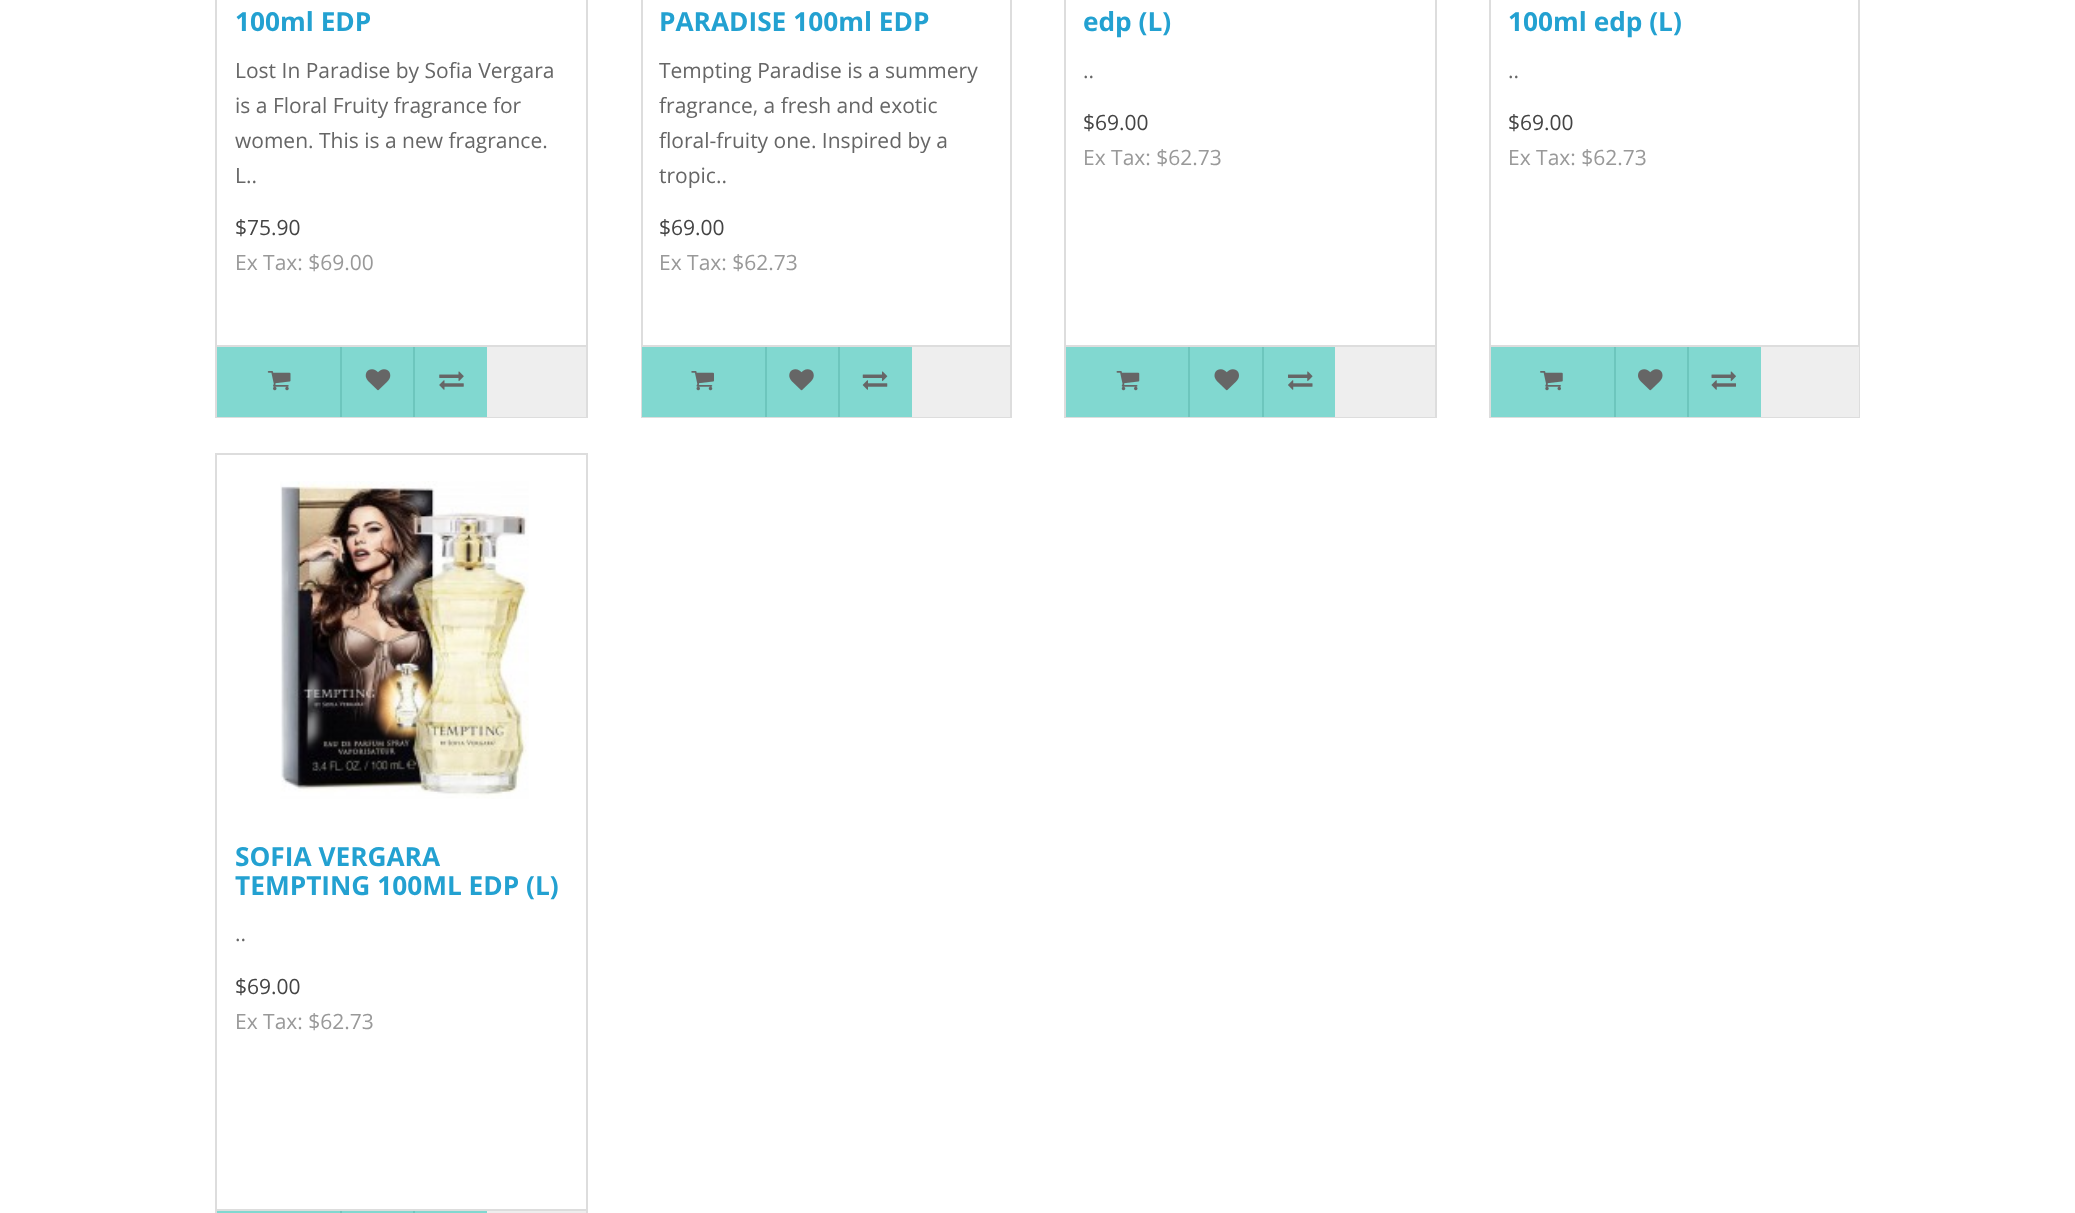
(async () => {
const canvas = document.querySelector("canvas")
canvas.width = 2075
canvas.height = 1213
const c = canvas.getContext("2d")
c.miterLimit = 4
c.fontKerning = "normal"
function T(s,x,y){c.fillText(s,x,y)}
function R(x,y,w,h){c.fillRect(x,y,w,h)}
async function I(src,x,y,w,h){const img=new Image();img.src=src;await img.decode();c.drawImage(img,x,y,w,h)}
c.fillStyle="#fff"
R(0,0,2075,1213)
c.strokeStyle="#ddd"
c.lineWidth=2
c.strokeRect(216,-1,371,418)
c.font="bold 26.25px Open Sans"
c.fillStyle="#23a1d1"
T("100ml EDP",235,31)
c.font="21px Open Sans"
c.fillStyle="#666"
T("Lost In Paradise by Sofia Vergara",235,78)
T("is a Floral Fruity fragrance for",235,113)
T("women. This is a new fragrance.",235,148)
T("L..",235,183)
c.fillStyle="#444"
T("$75.90",235,235)
c.fillStyle="#999"
T("Ex Tax: $69.00",235,270)
c.fillStyle="#eee"
R(487,347,99,70)
c.fillStyle="#ddd"
R(217,345,369,2)
c.fillStyle="#81d8d0"
R(217,347,123,70)
await I("1.png",267,371,24,20)
R(342,347,71,70)
c.fillStyle="#6dc6bd"
R(340,347,2,70)
await I("2.png",365,369,26,22)
c.fillStyle="#81d8d0"
R(415,347,72,70)
c.fillStyle="#6dc6bd"
R(413,347,2,70)
await I("3.png",439,371,25,19)
c.strokeRect(642,-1,369,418)
c.font="bold 26.25px Open Sans"
c.fillStyle="#23a1d1"
T("PARADISE 100ml EDP",659,31)
c.font="21px Open Sans"
c.fillStyle="#666"
T("Tempting Paradise is a summery",659,78)
T("fragrance, a fresh and exotic",659,113)
T("floral-fruity one. Inspired by a",659,148)
T("tropic..",659,183)
c.fillStyle="#444"
T("$69.00",659,235)
c.fillStyle="#999"
T("Ex Tax: $62.73",659,270)
c.fillStyle="#eee"
R(912,347,98,70)
c.fillStyle="#ddd"
R(642,345,368,2)
c.fillStyle="#81d8d0"
R(642,347,123,70)
await I("4.png",691,371,23,20)
R(767,347,71,70)
c.fillStyle="#6dc6bd"
R(765,347,2,70)
await I("5.png",789,369,25,22)
c.fillStyle="#81d8d0"
R(840,347,72,70)
c.fillStyle="#6dc6bd"
R(838,347,2,70)
await I("6.png",862,371,26,19)
c.strokeRect(1065,-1,371,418)
c.font="bold 26.25px Open Sans"
c.fillStyle="#23a1d1"
T("edp (L)",1083,31)
c.font="21px Open Sans"
c.fillStyle="#666"
T("..",1083,78)
c.fillStyle="#444"
T("$69.00",1083,130)
c.fillStyle="#999"
T("Ex Tax: $62.73",1083,165)
c.fillStyle="#eee"
R(1335,347,100,70)
c.fillStyle="#ddd"
R(1066,345,369,2)
c.fillStyle="#81d8d0"
R(1066,347,122,70)
await I("7.png",1116,371,24,20)
R(1190,347,72,70)
c.fillStyle="#6dc6bd"
R(1188,347,2,70)
await I("8.png",1214,369,25,22)
c.fillStyle="#81d8d0"
R(1264,347,71,70)
c.fillStyle="#6dc6bd"
R(1262,347,2,70)
await I("9.png",1288,371,25,19)
c.strokeRect(1490,-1,369,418)
c.font="bold 26.25px Open Sans"
c.fillStyle="#23a1d1"
T("100ml edp (L)",1508,31)
c.font="21px Open Sans"
c.fillStyle="#666"
T("..",1508,78)
c.fillStyle="#444"
T("$69.00",1508,130)
c.fillStyle="#999"
T("Ex Tax: $62.73",1508,165)
c.fillStyle="#eee"
R(1761,347,98,70)
c.fillStyle="#ddd"
R(1491,345,368,2)
c.fillStyle="#81d8d0"
R(1491,347,123,70)
await I("10.png",1540,371,23,20)
R(1616,347,71,70)
c.fillStyle="#6dc6bd"
R(1614,347,2,70)
await I("11.png",1638,369,25,22)
c.fillStyle="#81d8d0"
R(1689,347,72,70)
c.fillStyle="#6dc6bd"
R(1687,347,2,70)
await I("12.png",1711,371,25,19)
c.strokeRect(216,454,371,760)
await I("13.png",280,481,249,318)
c.font="bold 26.25px Open Sans"
c.fillStyle="#23a1d1"
T("SOFIA VERGARA",235,866)
T("TEMPTING 100ML EDP (L)",235,895)
c.font="21px Open Sans"
c.fillStyle="#666"
T("..",235,941)
c.fillStyle="#444"
T("$69.00",235,994)
c.fillStyle="#999"
T("Ex Tax: $62.73",235,1029)
c.fillStyle="#eee"
R(487,1211,99,2)
c.fillStyle="#ddd"
R(217,1209,369,2)
c.fillStyle="#81d8d0"
R(217,1211,270,2)
c.fillStyle="#6dc6bd"
R(340,1211,2,2)
R(413,1211,2,2)
})()
